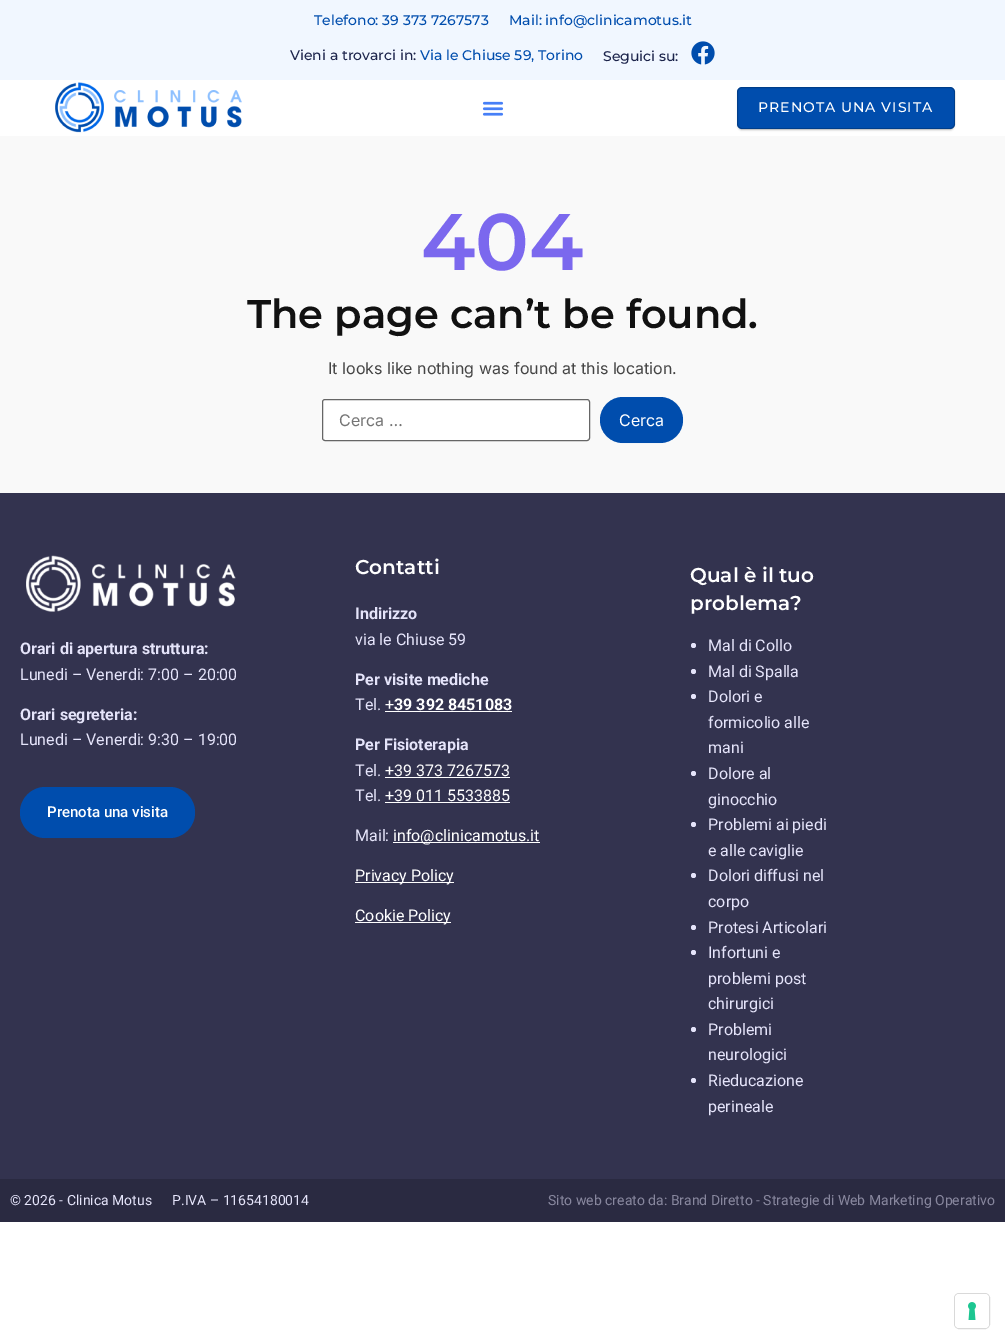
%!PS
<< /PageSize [1005 1344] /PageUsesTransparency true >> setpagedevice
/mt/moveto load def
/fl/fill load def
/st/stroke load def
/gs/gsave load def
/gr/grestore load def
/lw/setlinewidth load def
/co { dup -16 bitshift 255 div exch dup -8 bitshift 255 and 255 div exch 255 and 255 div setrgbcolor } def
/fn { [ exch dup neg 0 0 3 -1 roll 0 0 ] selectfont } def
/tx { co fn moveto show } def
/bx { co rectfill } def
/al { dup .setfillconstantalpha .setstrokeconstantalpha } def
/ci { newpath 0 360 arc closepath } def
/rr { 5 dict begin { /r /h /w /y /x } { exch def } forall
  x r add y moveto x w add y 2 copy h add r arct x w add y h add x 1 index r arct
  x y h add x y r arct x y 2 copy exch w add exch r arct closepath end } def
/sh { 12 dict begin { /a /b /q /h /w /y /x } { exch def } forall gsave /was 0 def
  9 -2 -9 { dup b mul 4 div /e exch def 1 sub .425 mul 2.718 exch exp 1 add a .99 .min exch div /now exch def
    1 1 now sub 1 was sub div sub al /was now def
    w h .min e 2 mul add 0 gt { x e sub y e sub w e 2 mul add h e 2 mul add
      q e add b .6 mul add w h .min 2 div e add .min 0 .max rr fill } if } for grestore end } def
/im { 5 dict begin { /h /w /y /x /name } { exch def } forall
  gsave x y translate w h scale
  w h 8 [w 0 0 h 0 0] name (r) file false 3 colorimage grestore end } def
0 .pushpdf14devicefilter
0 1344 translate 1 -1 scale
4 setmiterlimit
0 0 1005 1344 16#FFFFFF bx
0 0 1005 80 16#F1F7FF bx
(media/1.raw) 691 41 24 24 im
(media/2.raw) 55 82 187 51 im
(media/3.raw) 482 101 22 15 im
16#000000 co
738 90 216 40 4 1 .25 sh
16#004DAD co
737 87 218 42 5 rr fl
0.2 al
16#000000 co
737.5 87.5 217 41 4.5 rr st
1 al
0 136 1005 357 16#F9F9F9 bx
16#FFFFFF co
322.5 399.5 267 41 2.5 rr gs fl gr
16#666666 co
st
16#004DAD co
600 397 83 46 23 rr fl
0.12 al
3 lw
601.5 398.5 80 43 21.5 rr st
1 al
0 493 1005 686 16#33334F bx
(media/4.raw) 26 555 210 57 im
16#004DAD co
20 787 175 51 25.5 rr fl
0.12 al
21.5 788.5 172 48 24 rr st
1 al
385 711 127 1 16#FFFFFF bx
385 777 125 1 16#FFFFFF bx
385 802 125 1 16#FFFFFF bx
393 842 147 1 16#FFFFFF bx
355 882 99 1 16#FFFFFF bx
355 922 96 1 16#FFFFFF bx
16#E5E4FA co
693.5 645.5 2.5 ci fl
693.5 671.5 2.5 ci fl
693.5 696.5 2.5 ci fl
693.5 773.5 2.5 ci fl
693.5 824.5 2.5 ci fl
693.5 875.5 2.5 ci fl
693.5 927.5 2.5 ci fl
693.5 952.5 2.5 ci fl
693.5 1029.5 2.5 ci fl
693.5 1080.5 2.5 ci fl
0 1179 1005 43 16#2A2A41 bx
16#D9D9D9 co
1 lw
954.5 1293.5 35 35 4.5 rr st
16#FFFFFF co
955 1294 34 34 4 rr fl
(media/5.raw) 968 1302 8 18 im
(Telefono: 39 373 7267573) 314 25 /Montserrat-Medium 14 16#004DAD tx
(Mail: info@clinicamotus.it) 509 25 /Montserrat-Medium 14 16#004DAD tx
(Vieni a trovarci in:) 290 60 /Montserrat-Medium 14 16#1C244B tx
(Via le Chiuse 59, Torino) 420 60 /Montserrat-Medium 14 16#004DAD tx
(Seguici su:) 603 61 /Montserrat-Medium 14 16#1C244B tx
16#FFFFFF co
758 112 mt 1 0 (PRENOTA UNA VISITA) ashow
(404) 421 270 /Montserrat-SemiBold 80 16#7B68EE tx
(The page can’t be found.) 247 328 /Montserrat-SemiBold 40 16#111111 tx
(It looks like nothing was found at this location.) 328 374 /Inter-Regular 16 16#444444 tx
(Cerca …) 339 426 /Inter-Regular 16 16#757575 tx
(Cerca) 619 426 /Inter-Regular 16 16#FFFFFF tx
(Orari di apertura struttura:) 20 654 /Roboto-Bold 16 16#E5E4FA tx
(Lunedi – Venerdi: 7:00 – 20:00) 20 680 /Roboto-Regular 16 16#E5E4FA tx
(Orari segreteria:) 20 720 /Roboto-Bold 16 16#E5E4FA tx
(Lunedi – Venerdi: 9:30 – 19:00) 20 745 /Roboto-Regular 16 16#E5E4FA tx
(Prenota una visita) 47 817 /Roboto-Medium 15 16#FFFFFF tx
(Contatti) 355 574 /Montserrat-SemiBold 20 16#FFFFFF tx
(Indirizzo) 355 619 /Roboto-Bold 16 16#E5E4FA tx
(via le Chiuse 59) 355 645 /Roboto-Regular 16 16#E5E4FA tx
(Per visite mediche) 355 685 /Roboto-Bold 16 16#E5E4FA tx
(Tel.) 355 710 /Roboto-Regular 16 16#E5E4FA tx
(+) 385 710 /Roboto-Regular 16 16#FFFFFF tx
(39 392 8451083) 394 710 /Roboto-Bold 16 16#FFFFFF tx
(Per Fisioterapia) 355 750 /Roboto-Bold 16 16#E5E4FA tx
(Tel.) 355 776 /Roboto-Regular 16 16#E5E4FA tx
(+39 373 7267573) 385 776 /Roboto-Regular 16 16#FFFFFF tx
(Tel.) 355 801 /Roboto-Regular 16 16#E5E4FA tx
(+39 011 5533885) 385 801 /Roboto-Regular 16 16#FFFFFF tx
(Mail:) 355 841 /Roboto-Regular 16 16#E5E4FA tx
(info@clinicamotus.it) 393 841 /Roboto-Regular 16 16#FFFFFF tx
(Privacy Policy) 355 881 /Roboto-Regular 16 16#FFFFFF tx
(Cookie Policy) 355 921 /Roboto-Regular 16 16#FFFFFF tx
(Qual è il tuo) 690 582 /Montserrat-SemiBold 20 16#FFFFFF tx
(problema?) 690 610 /Montserrat-SemiBold 20 16#FFFFFF tx
(Mal di Collo) 708 651 /Roboto-Regular 16 16#E5E4FA tx
(Mal di Spalla) 708 677 /Roboto-Regular 16 16#E5E4FA tx
(Dolori e) 708 702 /Roboto-Regular 16 16#E5E4FA tx
(formicolio alle) 708 728 /Roboto-Regular 16 16#E5E4FA tx
(mani) 708 753 /Roboto-Regular 16 16#E5E4FA tx
(Dolore al) 708 779 /Roboto-Regular 16 16#E5E4FA tx
(ginocchio) 708 805 /Roboto-Regular 16 16#E5E4FA tx
(Problemi ai piedi) 708 830 /Roboto-Regular 16 16#E5E4FA tx
(e alle caviglie) 708 856 /Roboto-Regular 16 16#E5E4FA tx
(Dolori diffusi nel) 708 881 /Roboto-Regular 16 16#E5E4FA tx
(corpo) 708 907 /Roboto-Regular 16 16#E5E4FA tx
(Protesi Articolari) 708 933 /Roboto-Regular 16 16#E5E4FA tx
(Infortuni e) 708 958 /Roboto-Regular 16 16#E5E4FA tx
(problemi post) 708 984 /Roboto-Regular 16 16#E5E4FA tx
(chirurgici) 708 1009 /Roboto-Regular 16 16#E5E4FA tx
(Problemi) 708 1035 /Roboto-Regular 16 16#E5E4FA tx
(neurologici) 708 1060 /Roboto-Regular 16 16#E5E4FA tx
(Rieducazione) 708 1086 /Roboto-Regular 16 16#E5E4FA tx
(perineale) 708 1112 /Roboto-Regular 16 16#E5E4FA tx
(© 2026 - Clinica Motus) 10 1205 /Roboto-Regular 14 16#E5E4FA tx
(P.IVA – 11654180014) 172 1205 /Roboto-Regular 14 16#E5E4FA tx
(Sito web creato da: Brand Diretto - Strategie di Web Marketing Operativo) 548 1205 /Roboto-Regular 14 16#88879E tx
.poppdf14devicefilter showpage
